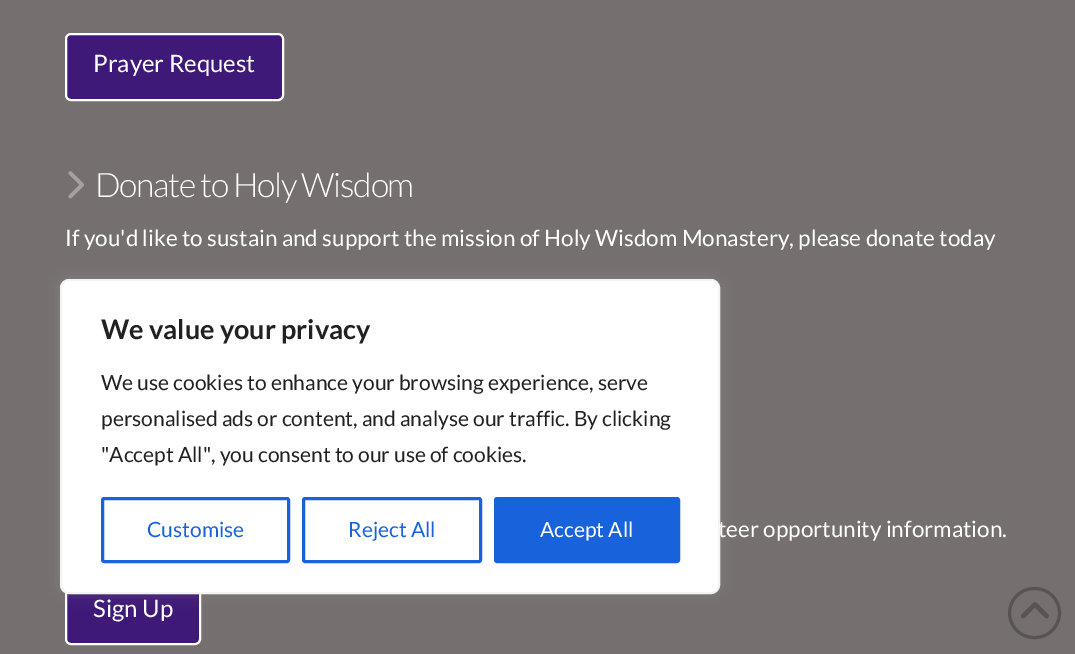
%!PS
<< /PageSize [1075 654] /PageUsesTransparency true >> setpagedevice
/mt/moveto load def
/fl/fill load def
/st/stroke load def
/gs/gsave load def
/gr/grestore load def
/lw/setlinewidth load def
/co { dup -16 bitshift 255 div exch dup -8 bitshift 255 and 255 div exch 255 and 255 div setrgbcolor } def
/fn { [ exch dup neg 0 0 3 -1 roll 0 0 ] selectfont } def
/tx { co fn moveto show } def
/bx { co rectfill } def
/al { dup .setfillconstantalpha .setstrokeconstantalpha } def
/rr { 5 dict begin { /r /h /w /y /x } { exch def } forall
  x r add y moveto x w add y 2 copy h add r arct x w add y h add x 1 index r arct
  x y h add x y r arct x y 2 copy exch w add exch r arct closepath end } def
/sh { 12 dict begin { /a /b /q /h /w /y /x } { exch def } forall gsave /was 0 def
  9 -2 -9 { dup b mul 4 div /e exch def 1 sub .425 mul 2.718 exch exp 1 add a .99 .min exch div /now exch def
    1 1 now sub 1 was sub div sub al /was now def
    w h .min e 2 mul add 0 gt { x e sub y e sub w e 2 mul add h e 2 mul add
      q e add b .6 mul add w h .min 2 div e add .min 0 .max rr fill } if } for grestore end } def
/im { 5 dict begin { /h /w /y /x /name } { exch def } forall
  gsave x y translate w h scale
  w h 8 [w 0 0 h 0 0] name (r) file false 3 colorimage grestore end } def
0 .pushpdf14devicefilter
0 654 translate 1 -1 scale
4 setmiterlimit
0 0 1075 654 16#756F6F bx
16#3F1977 co
66 34 217 66 5 rr gs fl gr
16#FFFFFF co
2 lw
st
(media/1.raw) 68 171 16 28 im
16#3F1977 co
66 579 134 65 5 rr gs fl gr
16#FFFFFF co
st
16#585454 co
3 lw
1009.5 588.5 50 49 24.5 rr st
(media/2.raw) 1021 602 28 17 im
16#ACABAB co
60 278 660 315 9 7.5 .3 sh
16#FFFFFF co
61 280 658 313 8 rr gs fl gr
16#F4F4F4 co
2 lw
st
16#1863DC co
3 lw
102.5 498.5 186 63 1.5 rr st
303.5 498.5 177 63 1.5 rr st
495.5 498.5 183 63 1.5 rr gs fl gr
st
(Prayer Request) 93 72 /Lato-Regular 24 16#FFFFFF tx
/Lato-Light 33.75 fn
95 197 mt -1.3 0 (Donate to Holy Wisdom) ashow
(If you'd like to sustain and support the mission of Holy Wisdom Monastery, please donate today) 65 246 /Lato-Regular 22.5 16#FFFFFF tx
(teer opportunity information.) 718 537 /Lato-Regular 22.5 16#FFFFFF tx
(Sign Up) 93 617 /Lato-Regular 24 16#FFFFFF tx
(We value your privacy) 101 339 /Lato-Bold 27 16#212121 tx
(We use cookies to enhance your browsing experience, serve) 101 390 /Lato-Regular 21 16#212121 tx
(personalised ads or content, and analyse our traffic. By clicking) 101 426 /Lato-Regular 21 16#212121 tx
("Accept All", you consent to our use of cookies.) 101 462 /Lato-Regular 21 16#212121 tx
(Customise) 147 537 /Lato-Regular 21 16#1863DC tx
(Reject All) 348 537 /Lato-Regular 21 16#1863DC tx
(Accept All) 540 537 /Lato-Regular 21 16#FFFFFF tx
.poppdf14devicefilter showpage
